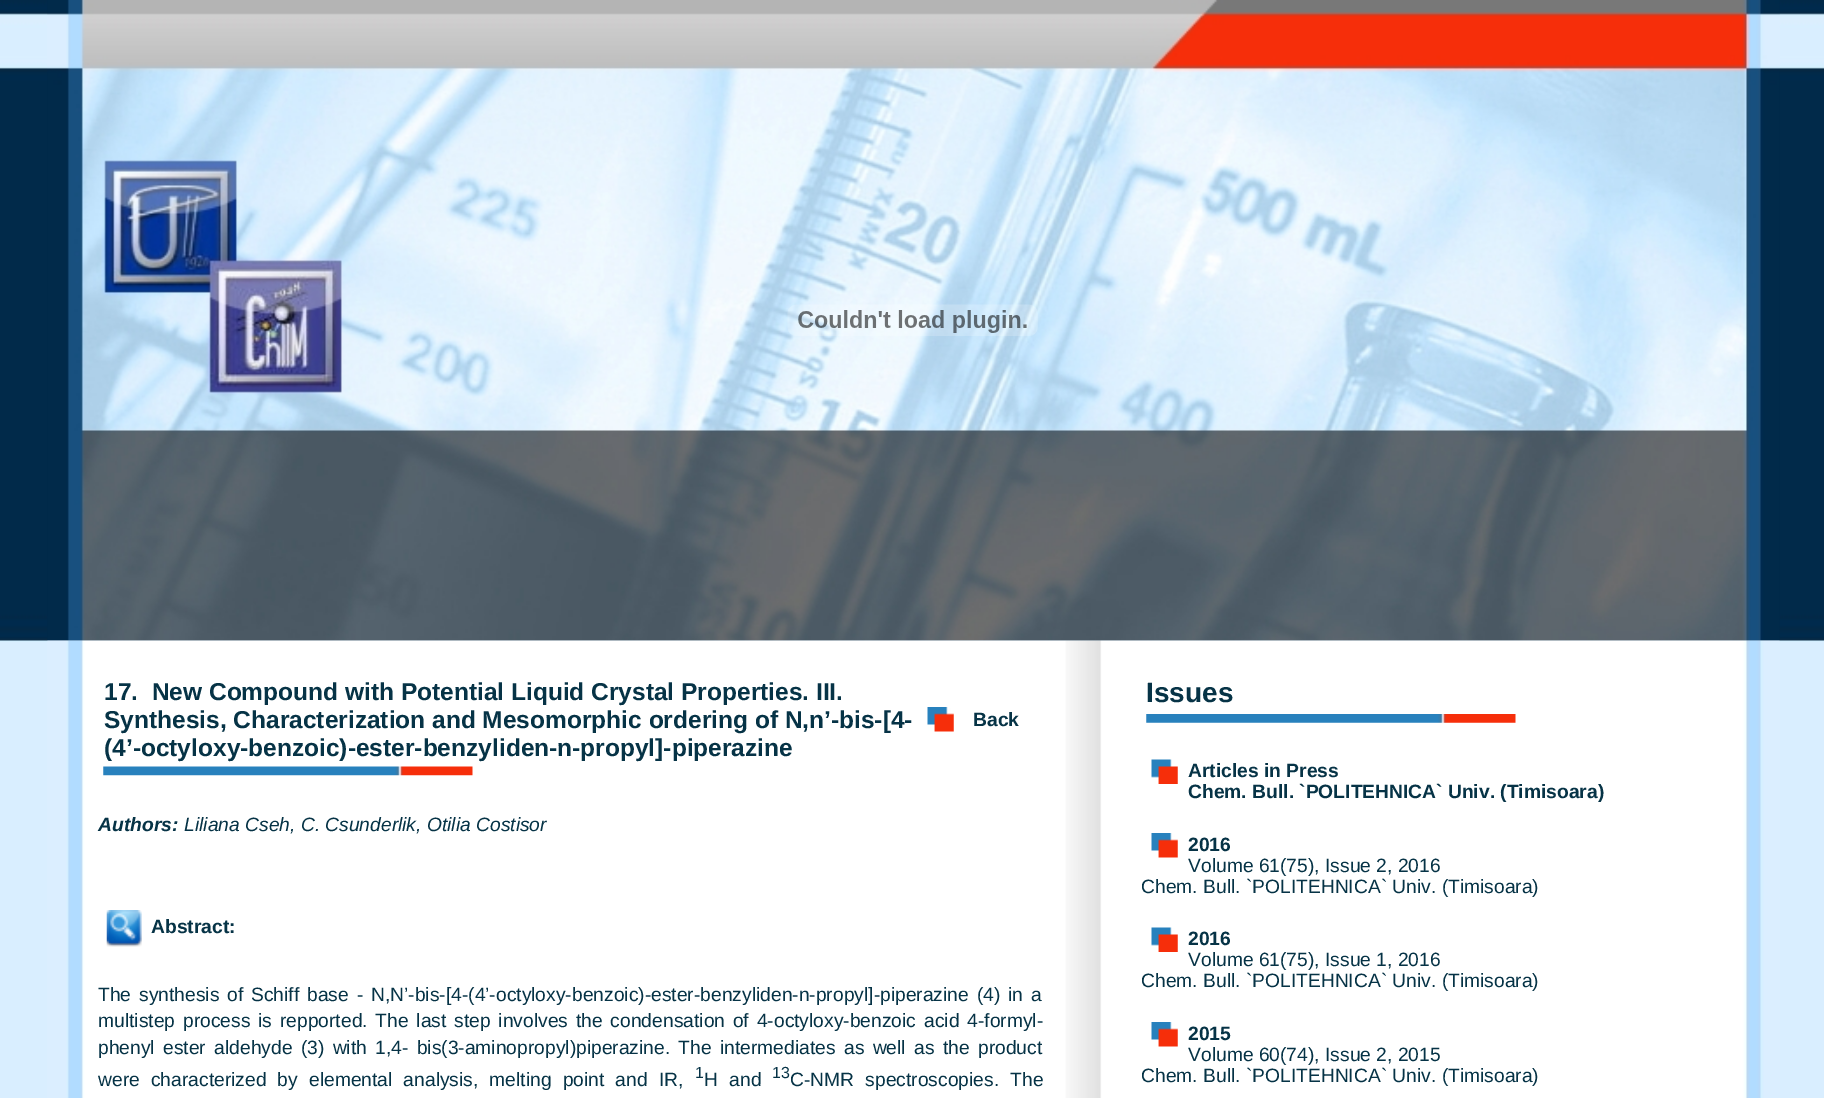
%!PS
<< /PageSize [1824 1098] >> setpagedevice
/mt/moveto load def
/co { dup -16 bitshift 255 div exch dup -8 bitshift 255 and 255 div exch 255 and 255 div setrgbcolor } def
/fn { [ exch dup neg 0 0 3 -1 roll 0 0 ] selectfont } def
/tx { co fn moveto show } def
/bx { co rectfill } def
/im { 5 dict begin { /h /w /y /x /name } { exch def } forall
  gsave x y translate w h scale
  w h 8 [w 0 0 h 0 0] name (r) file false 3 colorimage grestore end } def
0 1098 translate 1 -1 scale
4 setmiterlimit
0 0 1824 1098 16#D9EEFF bx
(media/1.raw) 0 0 1824 642 im
(media/2.raw) 47 0 1733 641 im
(media/3.raw) 787 304 251 32 im
(media/4.raw) 47 640 1733 458 im
(media/5.raw) 927 707 27 25 im
(media/6.raw) 103 766 370 10 im
(media/7.raw) 106 910 36 37 im
(media/8.raw) 1146 714 370 9 im
(media/9.raw) 1151 759 27 25 im
(media/5.raw) 1151 833 27 25 im
(media/9.raw) 1151 927 27 25 im
(media/5.raw) 1151 1022 27 25 im
(17.  New Compound with Potential Liquid Crystal Properties. III.) 104 700 /LiberationSans-Bold 24.5 16#063346 tx
(Synthesis, Characterization and Mesomorphic ordering of N,n’-bis-[4-) 104 728 /LiberationSans-Bold 24.5 16#063346 tx
(\(4’-octyloxy-benzoic\)-ester-benzyliden-n-propyl]-piperazine) 104 756 /LiberationSans-Bold 24.5 16#063346 tx
(Back) 973 726 /LiberationSans-Bold 19.25 16#063346 tx
(Authors:) 98 831 /LiberationSans-BoldItalic 19.25 16#063346 tx
(Liliana Cseh, C. Csunderlik, Otilia Costisor) 184 831 /LiberationSans-Italic 19.25 16#063346 tx
(Abstract:) 151 933 /LiberationSans-Bold 19.25 16#063346 tx
/LiberationSans-Regular 19.25 fn
98 1001 mt 2.5 0 32 (The synthesis of Schiff base - N,N’-bis-[4-\(4’-octyloxy-benzoic\)-ester-benzyliden-n-propyl]-piperazine \(4\) in a) widthshow
98 1027 mt 2.5 0 32 (multistep process is repported. The last step involves the condensation of 4-octyloxy-benzoic acid 4-formyl-) widthshow
98 1054 mt 3 0 32 (phenyl ester aldehyde \(3\) with 1,4- bis\(3-aminopropyl\)piperazine. The intermediates as well as the product) widthshow
98 1086 mt 5.75 0 32 (were characterized by elemental analysis, melting point and IR,) widthshow
(1) 695 1078 /LiberationSans-Regular 16 16#063346 tx
/LiberationSans-Regular 19.25 fn
704 1086 mt 6 0 32 (H and) widthshow
(13) 772 1078 /LiberationSans-Regular 16 16#063346 tx
/LiberationSans-Regular 19.25 fn
790 1086 mt 5.75 0 32 (C-NMR spectroscopies. The) widthshow
(Issues) 1146 702 /LiberationSans-Bold 28 16#063346 tx
(Articles in Press) 1188 777 /LiberationSans-Bold 19.25 16#063346 tx
(Chem. Bull. `POLITEHNICA` Univ. \(Timisoara\)) 1188 798 /LiberationSans-Bold 19.25 16#063346 tx
(2016) 1188 851 /LiberationSans-Bold 19.25 16#063346 tx
(Volume 61\(75\), Issue 2, 2016) 1188 872 /LiberationSans-Regular 19.25 16#063346 tx
(Chem. Bull. `POLITEHNICA` Univ. \(Timisoara\)) 1141 893 /LiberationSans-Regular 19.25 16#063346 tx
(2016) 1188 945 /LiberationSans-Bold 19.25 16#063346 tx
(Volume 61\(75\), Issue 1, 2016) 1188 966 /LiberationSans-Regular 19.25 16#063346 tx
(Chem. Bull. `POLITEHNICA` Univ. \(Timisoara\)) 1141 987 /LiberationSans-Regular 19.25 16#063346 tx
(2015) 1188 1040 /LiberationSans-Bold 19.25 16#063346 tx
(Volume 60\(74\), Issue 2, 2015) 1188 1061 /LiberationSans-Regular 19.25 16#063346 tx
(Chem. Bull. `POLITEHNICA` Univ. \(Timisoara\)) 1141 1082 /LiberationSans-Regular 19.25 16#063346 tx
showpage
